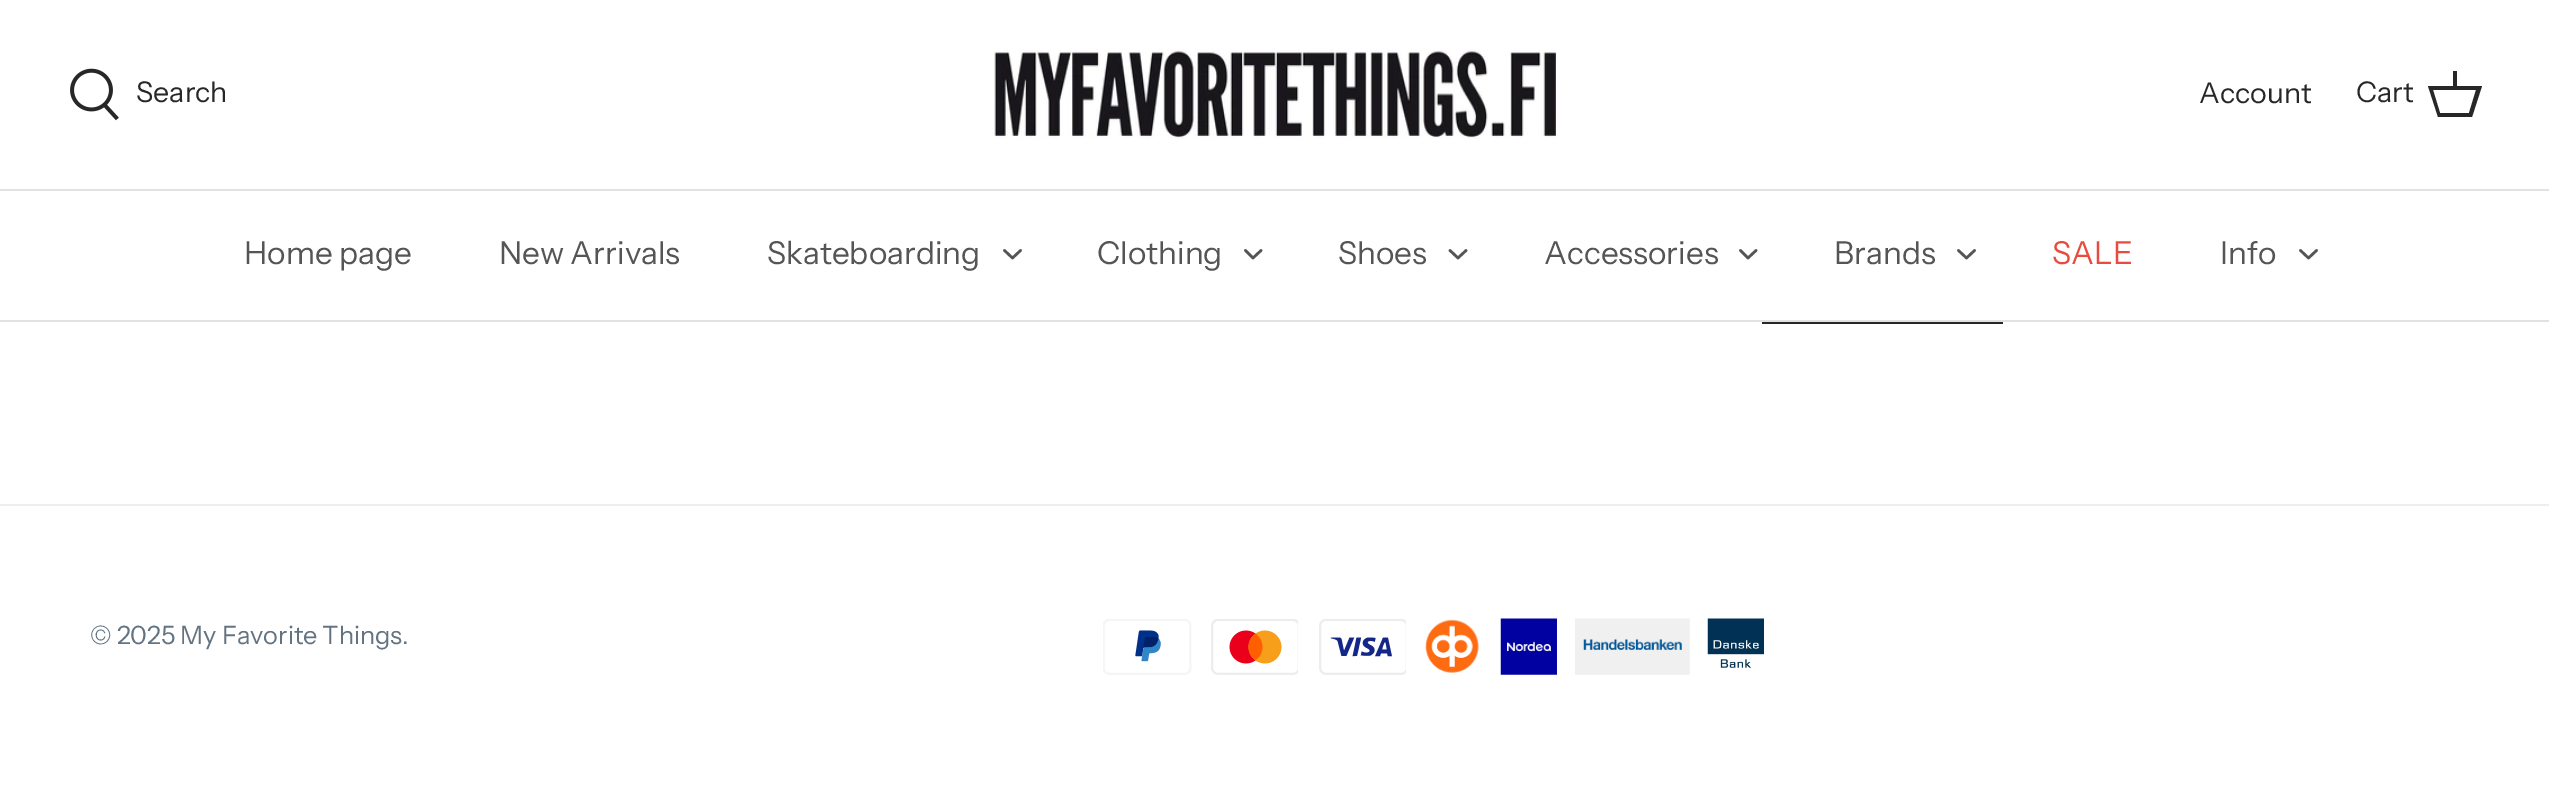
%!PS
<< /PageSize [2549 787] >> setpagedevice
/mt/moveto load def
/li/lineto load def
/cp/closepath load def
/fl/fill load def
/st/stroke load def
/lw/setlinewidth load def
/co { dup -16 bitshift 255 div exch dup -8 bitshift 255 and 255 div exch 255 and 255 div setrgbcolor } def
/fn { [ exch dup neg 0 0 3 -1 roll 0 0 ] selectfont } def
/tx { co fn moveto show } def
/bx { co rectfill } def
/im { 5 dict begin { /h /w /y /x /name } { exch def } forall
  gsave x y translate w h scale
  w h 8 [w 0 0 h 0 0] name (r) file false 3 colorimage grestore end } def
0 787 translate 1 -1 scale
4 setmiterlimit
0 0 2549 787 16#FFFFFF bx
0 189 2549 2 16#E2E2E2 bx
(media/1.raw) 70 68 49 53 im
(media/2.raw) 994 49 564 90 im
16#272727 co
2453 86 mt 2453 71 li 2457 71 li 2457 86 li 2482 86 li 2472 117 li 2438 117 li 2428 86 li cp 2433 90 mt 2440 113 li 2469 113 li 2476 90 li cp fl
0 320 2549 2 16#E2E2E2 bx
16#555555 co
2.6 lw
1 setlinecap
1 setlinejoin
1004.5 250.5 mt 1012.5 258 li 1020.5 250.5 li st
1245.5 250.5 mt 1253 258 li 1261 250.5 li st
1450 250.5 mt 1458 258 li 1466 250.5 li st
1740.5 250.5 mt 1748 258 li 1756 250.5 li st
1958.5 250.5 mt 1966.5 258 li 1974.5 250.5 li st
2300.5 250.5 mt 2308.5 258 li 2316.5 250.5 li st
1762 322 241 2 16#272727 bx
0 504 2549 2 16#EEEEEE bx
(media/3.raw) 1103 619 89 56 im
(media/4.raw) 1211 619 87 56 im
(media/5.raw) 1319 619 87 56 im
(media/6.raw) 1425 619 54 54 im
(media/7.raw) 1500 618 57 57 im
(media/8.raw) 1575 618 115 57 im
(media/9.raw) 1707 618 57 50 im
(Search) 136 102 /InstrumentSans-Regular 28.5 16#272727 tx
(Account) 2199 103 /InstrumentSans-Regular 28.5 16#272727 tx
(Cart) 2356 102 /InstrumentSans-Regular 28.5 16#272727 tx
(Home page) 244 264 /InstrumentSans-Regular 31.5 16#555555 tx
(New Arrivals) 499 264 /InstrumentSans-Regular 31.5 16#555555 tx
(Skateboarding) 767 264 /InstrumentSans-Regular 31.5 16#555555 tx
(Clothing) 1097 264 /InstrumentSans-Regular 31.5 16#555555 tx
(Shoes) 1338 264 /InstrumentSans-Regular 31.5 16#555555 tx
(Accessories) 1544 264 /InstrumentSans-Regular 31.5 16#555555 tx
(Brands) 1834 264 /InstrumentSans-Regular 31.5 16#555555 tx
(SALE) 2052 264 /InstrumentSans-Regular 31.5 16#E94B3F tx
(Info) 2220 264 /InstrumentSans-Regular 31.5 16#555555 tx
(© 2025 My Favorite Things.) 90 644 /InstrumentSans-Regular 25.25 16#637381 tx
showpage
